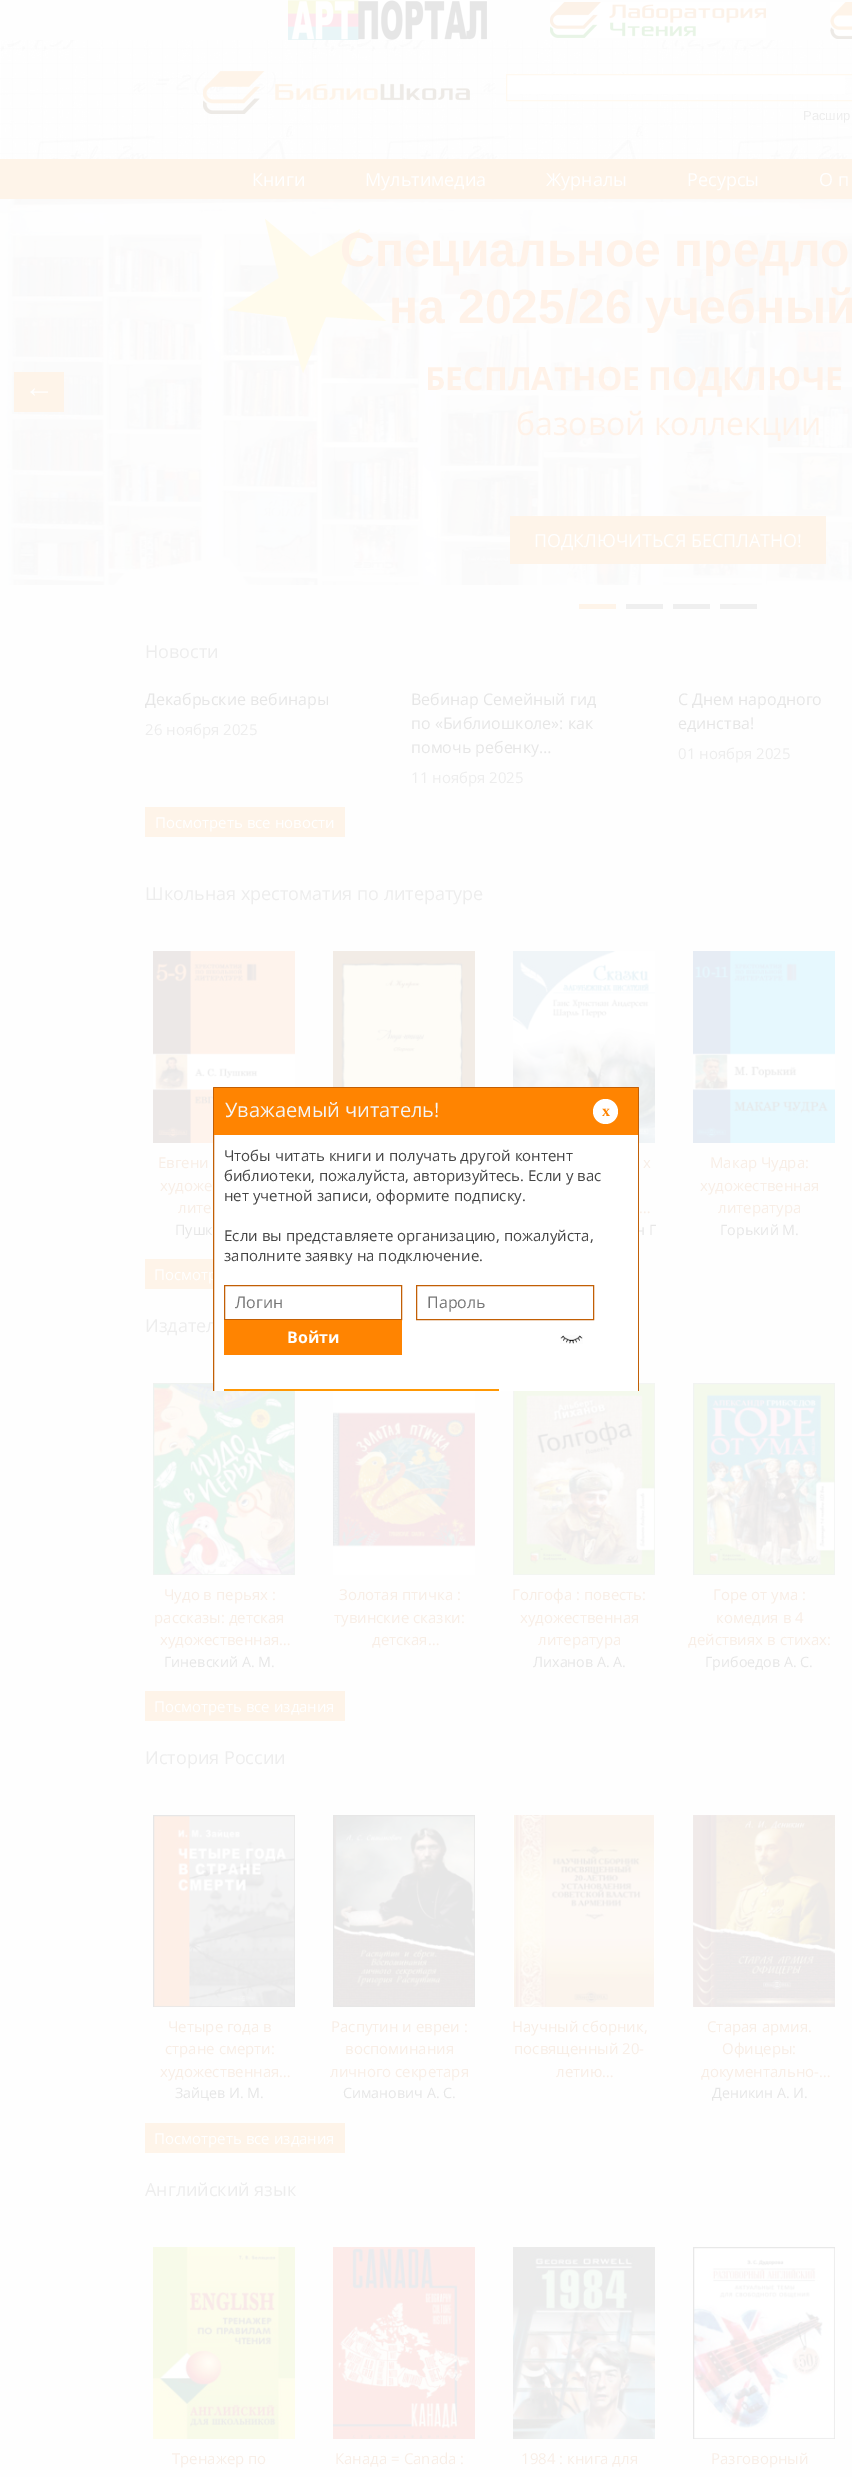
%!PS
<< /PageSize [852 2477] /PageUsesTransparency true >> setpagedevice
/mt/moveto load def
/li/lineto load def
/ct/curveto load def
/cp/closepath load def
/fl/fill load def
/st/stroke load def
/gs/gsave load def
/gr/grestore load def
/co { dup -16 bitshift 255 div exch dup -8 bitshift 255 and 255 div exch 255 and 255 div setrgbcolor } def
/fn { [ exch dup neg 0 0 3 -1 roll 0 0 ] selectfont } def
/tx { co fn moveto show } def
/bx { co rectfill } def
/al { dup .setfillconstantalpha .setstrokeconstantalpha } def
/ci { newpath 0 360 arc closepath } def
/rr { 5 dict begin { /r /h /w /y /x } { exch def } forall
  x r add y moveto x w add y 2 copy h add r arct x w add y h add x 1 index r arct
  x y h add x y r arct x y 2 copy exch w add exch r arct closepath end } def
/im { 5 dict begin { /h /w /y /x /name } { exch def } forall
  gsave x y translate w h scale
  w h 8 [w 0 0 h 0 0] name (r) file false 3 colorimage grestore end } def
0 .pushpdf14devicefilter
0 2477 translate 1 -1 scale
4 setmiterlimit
0 0 852 2477 16#FEFEFE bx
(media/1.raw) 288 0 199 40 im
(media/2.raw) 550 2 216 36 im
(media/3.raw) 830 2 22 37 im
(media/4.raw) 0 40 852 119 im
(media/5.raw) 203 71 267 43 im
507 75 338 19 16#FFFFFF bx
16#FFF9F0 co
506.5 74.5 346 26 rectstroke
0 159 852 40 16#FEF4E9 bx
(media/6.raw) 0 199 852 386 im
14 372 50 40 16#FEF4E9 bx
0.95 al
16#FFFBEB co
360 229 mt 341 283 li 386 321 li 326 317 li 303 373 li 286 317 li 228 310 li 279 278 li 265 219 li 311 257 li cp fl
1 al
510 516 316 48 16#FEF4E9 bx
579 604 37 5 16#FEF4E9 bx
626 604 37 5 16#EFEFEF bx
673 604 37 5 16#EFEFEF bx
720 604 37 5 16#EFEFEF bx
145 807 200 30 16#FEF4E9 bx
(media/7.raw) 333 951 142 136 im
(media/8.raw) 153 951 142 192 im
(media/9.raw) 513 951 142 192 im
(media/10.raw) 693 951 142 192 im
145 1259 68 30 16#FEF4E9 bx
(media/11.raw) 153 1383 142 192 im
(media/12.raw) 333 1391 142 184 im
(media/13.raw) 513 1383 142 192 im
(media/14.raw) 693 1383 142 192 im
145 1691 200 30 16#FEF4E9 bx
(media/15.raw) 153 1815 142 192 im
(media/16.raw) 333 1815 142 192 im
(media/17.raw) 513 1815 142 192 im
(media/18.raw) 693 1815 142 192 im
145 2123 200 30 16#FEF4E9 bx
(media/19.raw) 153 2247 142 192 im
(media/20.raw) 333 2247 142 192 im
(media/21.raw) 513 2247 142 192 im
(media/22.raw) 693 2247 142 192 im
(Расшир) 803 120 /LiberationSans-Regular 13 16#EDEDED tx
(Книги) 252 186 /OpenSans-Regular 18 16#FFFFFF tx
(Мультимедиа) 365 186 /OpenSans-Regular 18 16#FFFFFF tx
(Журналы) 546 186 /OpenSans-Regular 18 16#FFFFFF tx
(Ресурсы) 687 186 /OpenSans-Regular 18 16#FFFFFF tx
(О п) 819 186 /OpenSans-Regular 18 16#FFFFFF tx
(←) 24 397 /LiberationSans-Regular 30 16#FFFFFF tx
(Специальное предло) 340 266 /LiberationSans-Bold 48 16#FFF2E8 tx
(на 2025/26 учебный) 389 323 /LiberationSans-Bold 48 16#FFF2E8 tx
(БЕСПЛАТНОЕ ПОДКЛЮЧЕ) 425 390 /OpenSans-Bold 32 16#FFF2E8 tx
(базовой коллекции) 516 435 /OpenSans-Regular 32 16#FFF2E8 tx
(ПОДКЛЮЧИТЬСЯ БЕСПЛАТНО!) 534 547 /OpenSans-Regular 18 16#FFFFFF tx
(Новости) 145 658 /OpenSans-Regular 18 16#EDEDED tx
gs
145 687 200 24 rectclip
(Декабрьские вебинары) 145 705 /OpenSans-Regular 16 16#E6E6E6 tx
gr
(26 ноября 2025) 145 735 /OpenSans-Regular 15 16#EDEDED tx
(Вебинар Семейный гид) 411 705 /OpenSans-Regular 16 16#E6E6E6 tx
(по «Библиошколе»: как) 411 729 /OpenSans-Regular 16 16#E6E6E6 tx
(помочь ребенку…) 411 753 /OpenSans-Regular 16 16#E6E6E6 tx
(11 ноября 2025) 411 783 /OpenSans-Regular 15 16#EDEDED tx
(С Днем народного) 678 705 /OpenSans-Regular 16 16#E6E6E6 tx
(единства!) 678 729 /OpenSans-Regular 16 16#E6E6E6 tx
(01 ноября 2025) 678 759 /OpenSans-Regular 15 16#EDEDED tx
(Посмотреть все новости) 155 828 /OpenSans-Regular 15 16#FFFFFF tx
(Школьная хрестоматия по литературе) 145 900 /OpenSans-Regular 18 16#EDEDED tx
(Евгени) 158 1168 /OpenSans-Regular 15 16#F8EEE6 tx
(художе) 160 1191 /OpenSans-Regular 15 16#F8EEE6 tx
(лите) 178 1213 /OpenSans-Regular 15 16#F8EEE6 tx
(Пушк) 175 1235 /OpenSans-Regular 14.25 16#E6E6E6 tx
(х) 643 1168 /OpenSans-Regular 15 16#F8EEE6 tx
(…) 639 1213 /OpenSans-Regular 15 16#F8EEE6 tx
(н Г) 636 1235 /OpenSans-Regular 14.25 16#E6E6E6 tx
(Макар Чудра:) 710 1168 /OpenSans-Regular 15 16#F8EEE6 tx
(художественная) 700 1191 /OpenSans-Regular 15 16#F8EEE6 tx
(литература) 718 1213 /OpenSans-Regular 15 16#F8EEE6 tx
(Горький М.) 720 1235 /OpenSans-Regular 14.25 16#E6E6E6 tx
(Посмотр) 154 1280 /OpenSans-Regular 15 16#FFFFFF tx
(Издател) 145 1332 /OpenSans-Regular 18 16#EDEDED tx
(Чудо в перьях :) 164 1600 /OpenSans-Regular 15 16#F8EEE6 tx
(рассказы: детская) 154 1623 /OpenSans-Regular 15 16#F8EEE6 tx
(художественная…) 160 1645 /OpenSans-Regular 15 16#F8EEE6 tx
(Гиневский А. М.) 164 1667 /OpenSans-Regular 14.25 16#E6E6E6 tx
(Золотая птичка :) 339 1600 /OpenSans-Regular 15 16#F8EEE6 tx
(тувинские сказки:) 334 1623 /OpenSans-Regular 15 16#F8EEE6 tx
(детская…) 372 1645 /OpenSans-Regular 15 16#F8EEE6 tx
(Голгофа : повесть:) 512 1600 /OpenSans-Regular 15 16#F8EEE6 tx
(художественная) 520 1623 /OpenSans-Regular 15 16#F8EEE6 tx
(литература) 538 1645 /OpenSans-Regular 15 16#F8EEE6 tx
(Лиханов А. А.) 533 1667 /OpenSans-Regular 14.25 16#E6E6E6 tx
(Горе от ума :) 713 1600 /OpenSans-Regular 15 16#F8EEE6 tx
(комедия в 4) 716 1623 /OpenSans-Regular 15 16#F8EEE6 tx
(действиях в стихах:) 688 1645 /OpenSans-Regular 15 16#F8EEE6 tx
(Грибоедов А. С.) 705 1667 /OpenSans-Regular 14.25 16#E6E6E6 tx
(Посмотреть все издания) 154 1712 /OpenSans-Regular 15 16#FFFFFF tx
(История России) 145 1764 /OpenSans-Regular 18 16#EDEDED tx
(Четыре года в) 168 2032 /OpenSans-Regular 15 16#F8EEE6 tx
(стране смерти:) 165 2054 /OpenSans-Regular 15 16#F8EEE6 tx
(художественная…) 160 2077 /OpenSans-Regular 15 16#F8EEE6 tx
(Зайцев И. М.) 175 2098 /OpenSans-Regular 14.25 16#E6E6E6 tx
(Распутин и евреи :) 331 2032 /OpenSans-Regular 15 16#F8EEE6 tx
(воспоминания) 345 2054 /OpenSans-Regular 15 16#F8EEE6 tx
(личного секретаря) 330 2077 /OpenSans-Regular 15 16#F8EEE6 tx
(Симанович А. С.) 343 2098 /OpenSans-Regular 14.25 16#E6E6E6 tx
(Научный сборник,) 512 2032 /OpenSans-Regular 15 16#F8EEE6 tx
(посвященный 20-) 514 2054 /OpenSans-Regular 15 16#F8EEE6 tx
(летию…) 556 2077 /OpenSans-Regular 15 16#F8EEE6 tx
(Старая армия.) 707 2032 /OpenSans-Regular 15 16#F8EEE6 tx
(Офицеры:) 722 2054 /OpenSans-Regular 15 16#F8EEE6 tx
(документально-…) 701 2077 /OpenSans-Regular 15 16#F8EEE6 tx
(Деникин А. И.) 712 2098 /OpenSans-Regular 14.25 16#E6E6E6 tx
(Посмотреть все издания) 154 2144 /OpenSans-Regular 15 16#FFFFFF tx
(Английский язык) 145 2196 /OpenSans-Regular 18 16#EDEDED tx
(Тренажер по) 172 2464 /OpenSans-Regular 15 16#F8EEE6 tx
(Канада = Canada :) 335 2464 /OpenSans-Regular 15 16#F8EEE6 tx
(1984 : книга для) 521 2464 /OpenSans-Regular 15 16#F8EEE6 tx
(Разговорный) 711 2464 /OpenSans-Regular 15 16#F8EEE6 tx
16#FFFFFF co
214 1087 mt 638 1087 li 638.5 1087 639 1087.5 639 1088 ct 639 1391 li 213 1391 li 213 1088 li 213 1087.5 213.5 1087 214 1087 ct cp fl
gs
213 1087 426 304 rectclip
16#C25F05 co
213.5 1087.5 425 397 .5 rr st
gr
214 1088 424 47 16#FF8401 bx
(Уважаемый читатель!) 225 1117 /OpenSans-Regular 20 16#F5F5F5 tx
16#FFFFFF co
605.5 1111.5 12.5 ci fl
(x) 602 1116 /LiberationSerif-Bold 16 16#FF8401 tx
(Чтобы читать книги и получать другой контент) 224 1161 /OpenSans-Regular 15 16#454545 tx
(библиотеки, пожалуйста, авторизуйтесь. Если у вас) 224 1181 /OpenSans-Regular 15 16#454545 tx
(нет учетной записи, оформите подписку.) 224 1201 /OpenSans-Regular 15 16#454545 tx
(Если вы представляете организацию, пожалуйста,) 224 1241 /OpenSans-Regular 15 16#454545 tx
(заполните заявку на подключение.) 224 1261 /OpenSans-Regular 15 16#454545 tx
16#C25F05 co
224.5 1285.5 177 34 rectstroke
(Логин) 235 1308 /OpenSans-Regular 16 16#757575 tx
16#C25F05 co
416.5 1285.5 177 34 rectstroke
(Пароль) 427 1308 /OpenSans-Regular 16 16#757575 tx
224 1320 178 35 16#FF8401 bx
(Войти) 287 1343 /OpenSans-Bold 16 16#FFFFFF tx
(media/23.raw) 560 1335 23 9 im
224 1389 275 2 16#FF9804 bx
.poppdf14devicefilter showpage
